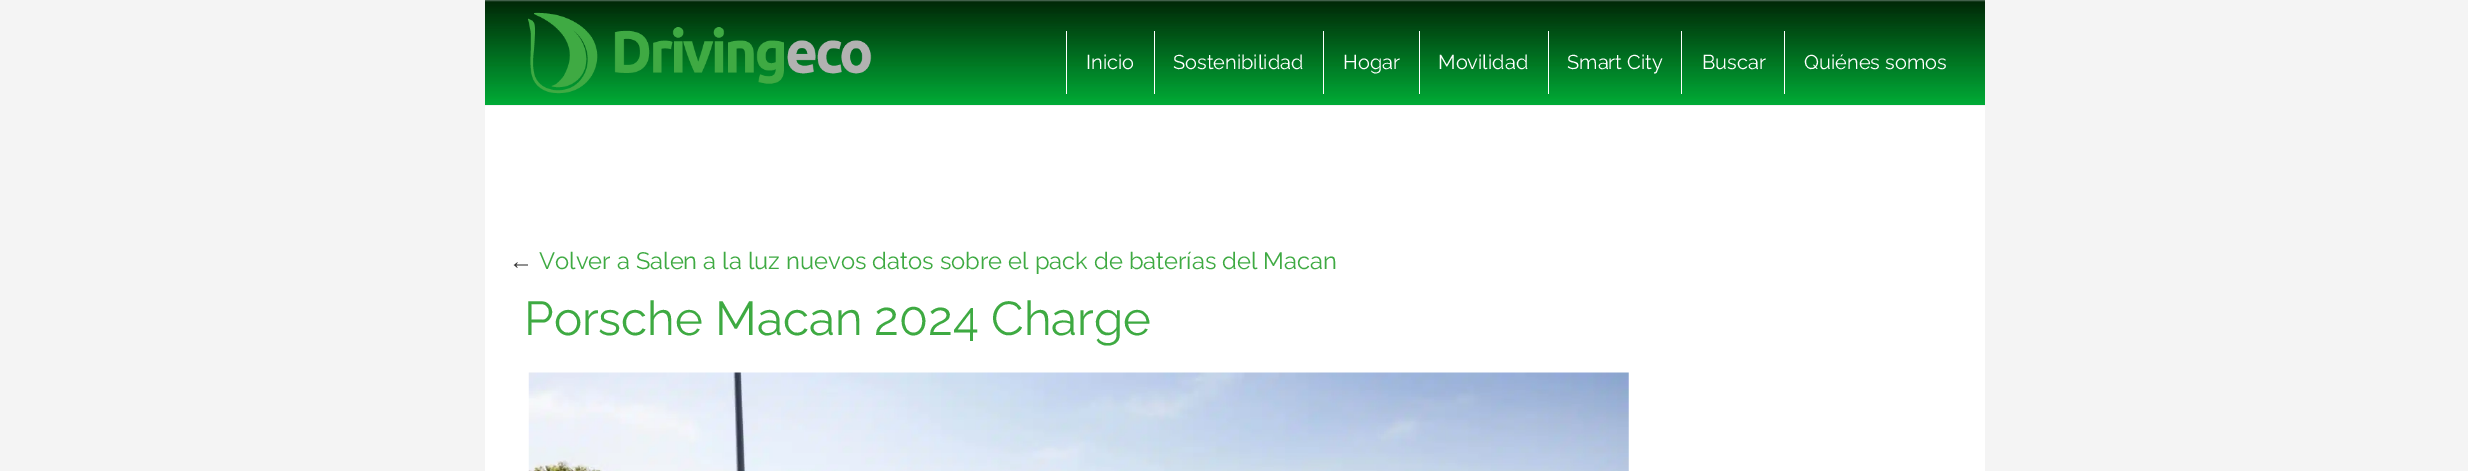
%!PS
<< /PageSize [2468 471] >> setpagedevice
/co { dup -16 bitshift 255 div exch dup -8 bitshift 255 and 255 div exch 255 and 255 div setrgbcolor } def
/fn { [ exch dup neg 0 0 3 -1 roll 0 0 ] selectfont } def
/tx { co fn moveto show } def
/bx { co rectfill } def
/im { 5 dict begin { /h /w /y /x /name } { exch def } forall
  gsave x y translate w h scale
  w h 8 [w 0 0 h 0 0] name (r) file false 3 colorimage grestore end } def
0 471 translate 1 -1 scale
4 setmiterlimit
0 0 2468 471 16#F4F4F4 bx
(media/1.raw) 485 0 1500 105 im
(media/2.raw) 528 12 344 82 im
1066 31 1 63 16#FFFFFF bx
1154 31 1 63 16#FFFFFF bx
1323 31 1 63 16#FFFFFF bx
1419 31 1 63 16#FFFFFF bx
1548 31 1 63 16#FFFFFF bx
1681 31 1 63 16#FFFFFF bx
1784 31 1 63 16#FFFFFF bx
485 106 1500 365 16#FFFFFF bx
(media/3.raw) 528 372 1101 99 im
(Inicio) 1086 69 /Raleway-Regular 20 16#FFFFFF tx
(Sostenibilidad) 1173 69 /Raleway-Regular 20 16#FFFFFF tx
(Hogar) 1343 69 /Raleway-Regular 20 16#FFFFFF tx
(Movilidad) 1438 69 /Raleway-Regular 20 16#FFFFFF tx
(Smart City) 1567 69 /Raleway-Regular 20 16#FFFFFF tx
(Buscar) 1702 69 /Raleway-Regular 20 16#FFFFFF tx
(Quiénes somos) 1804 69 /Raleway-Regular 20 16#FFFFFF tx
(←) 509 269 /LiberationSans-Regular 23.75 16#333333 tx
(Volver a Salen a la luz nuevos datos sobre el pack de baterías del Macan) 539 269 /Raleway-Regular 23.75 16#3EAA42 tx
(Porsche Macan 2024 Charge) 524 335 /Raleway-Regular 47.5 16#3EAA42 tx
showpage
